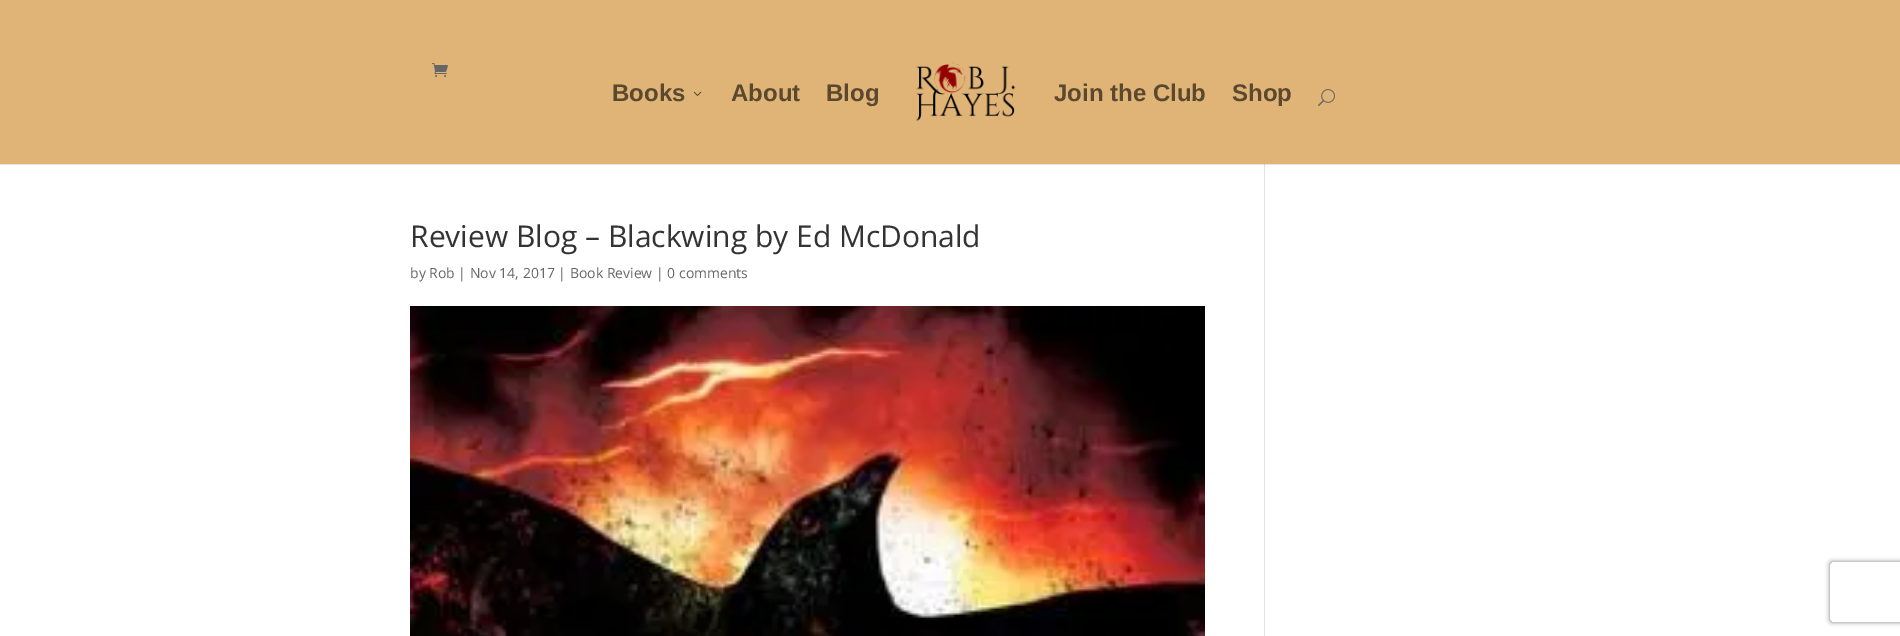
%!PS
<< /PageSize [1900 636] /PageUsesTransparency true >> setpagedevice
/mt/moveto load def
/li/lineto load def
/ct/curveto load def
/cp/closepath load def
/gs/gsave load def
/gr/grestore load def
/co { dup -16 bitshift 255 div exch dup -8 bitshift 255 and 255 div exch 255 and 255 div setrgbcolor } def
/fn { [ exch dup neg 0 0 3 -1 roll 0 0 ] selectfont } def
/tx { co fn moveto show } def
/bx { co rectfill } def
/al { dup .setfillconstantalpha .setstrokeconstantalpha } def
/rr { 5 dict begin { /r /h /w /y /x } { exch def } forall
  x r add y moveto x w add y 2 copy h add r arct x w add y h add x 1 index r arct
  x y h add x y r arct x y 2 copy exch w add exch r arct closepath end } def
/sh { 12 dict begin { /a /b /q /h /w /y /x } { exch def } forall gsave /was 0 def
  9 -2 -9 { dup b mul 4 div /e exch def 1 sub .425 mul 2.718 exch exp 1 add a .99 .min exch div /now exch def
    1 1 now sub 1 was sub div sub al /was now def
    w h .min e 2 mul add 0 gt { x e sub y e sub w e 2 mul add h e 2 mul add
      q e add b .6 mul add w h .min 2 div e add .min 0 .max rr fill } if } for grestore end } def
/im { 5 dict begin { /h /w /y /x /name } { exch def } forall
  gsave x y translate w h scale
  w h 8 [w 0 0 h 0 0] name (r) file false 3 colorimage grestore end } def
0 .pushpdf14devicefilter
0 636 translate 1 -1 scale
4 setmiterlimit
0 0 1900 636 16#FFFFFF bx
0 164 1900 1 16#E6E6E6 bx
1264 163 1 473 16#E2E2E2 bx
0 0 1900 164 16#E0B476 bx
(media/1.raw) 432 63 16 14 im
(media/2.raw) 693 91 9 5 im
(media/3.raw) 916 62 99 59 im
(media/4.raw) 1318 89 17 18 im
(media/5.raw) 410 306 795 330 im
1264 164 1 1 16#CBCBCB bx
gs
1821 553 mt 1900 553 li 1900 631 li 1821 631 li cp 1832 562 mt 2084 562 li 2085 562 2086 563 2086 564 ct 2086 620 li 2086 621 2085 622 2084 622 ct 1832 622 li 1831 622 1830 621 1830 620 ct 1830 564 li 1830 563 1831 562 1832 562 ct cp eoclip newpath
16#808080 co
1830 562 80 60 2 2.5 1 sh
gr
(Books) 612 101 /LiberationSans-Bold 24 16#5A482F tx
(About) 731 101 /LiberationSans-Bold 24 16#5A482F tx
(Blog) 826 101 /LiberationSans-Bold 24 16#5A482F tx
(Join the Club) 1054 101 /LiberationSans-Bold 24 16#5A482F tx
(Shop) 1232 101 /LiberationSans-Bold 24 16#5A482F tx
(Review Blog – Blackwing by Ed McDonald) 410 247 /OpenSans-Regular 30 16#333333 tx
(by Rob | Nov 14, 2017 | Book Review | 0 comments) 410 278 /OpenSans-Regular 14 16#666666 tx
.poppdf14devicefilter showpage
